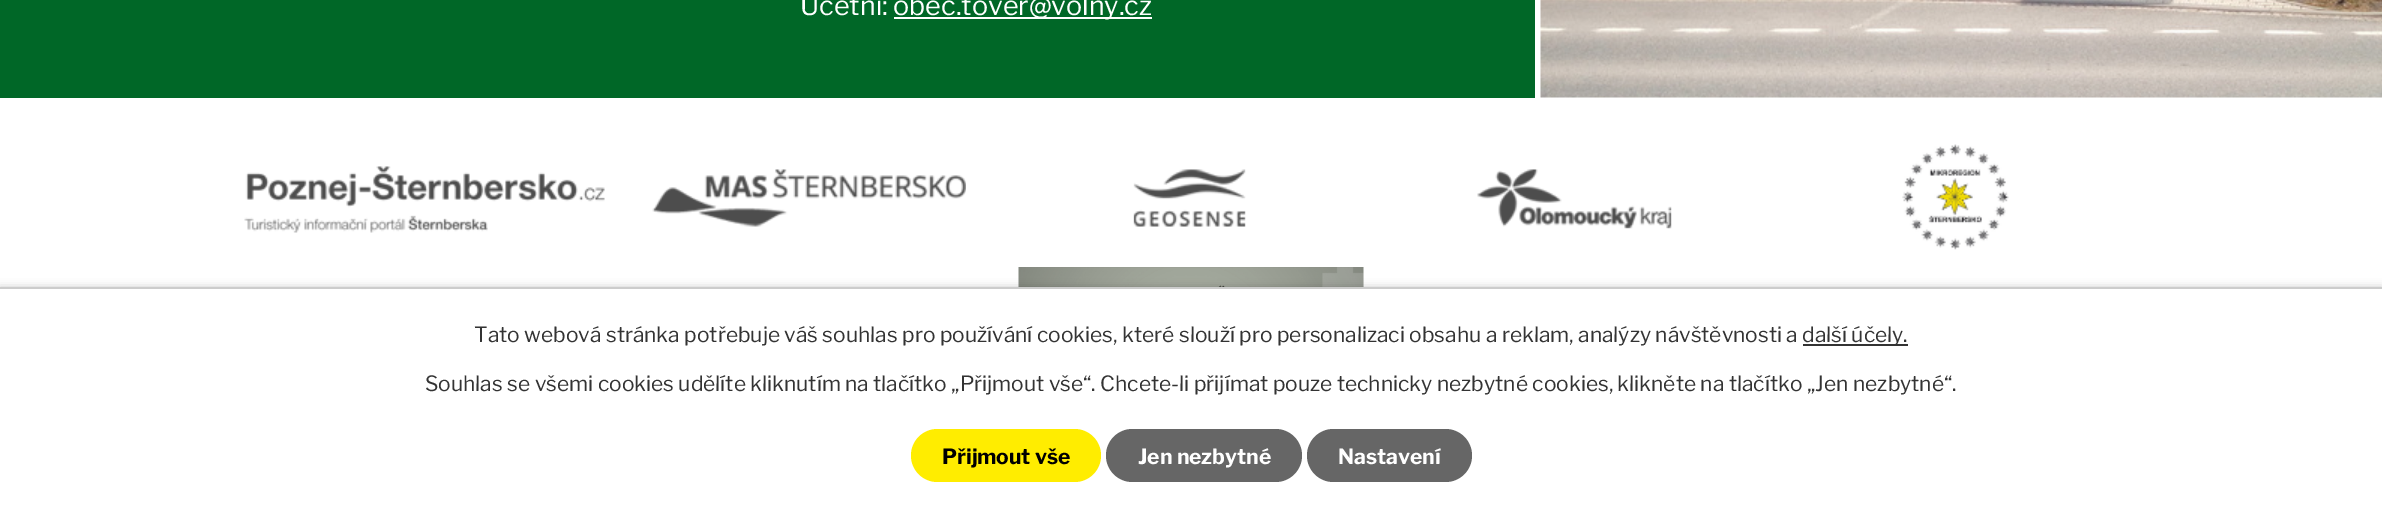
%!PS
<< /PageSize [2382 509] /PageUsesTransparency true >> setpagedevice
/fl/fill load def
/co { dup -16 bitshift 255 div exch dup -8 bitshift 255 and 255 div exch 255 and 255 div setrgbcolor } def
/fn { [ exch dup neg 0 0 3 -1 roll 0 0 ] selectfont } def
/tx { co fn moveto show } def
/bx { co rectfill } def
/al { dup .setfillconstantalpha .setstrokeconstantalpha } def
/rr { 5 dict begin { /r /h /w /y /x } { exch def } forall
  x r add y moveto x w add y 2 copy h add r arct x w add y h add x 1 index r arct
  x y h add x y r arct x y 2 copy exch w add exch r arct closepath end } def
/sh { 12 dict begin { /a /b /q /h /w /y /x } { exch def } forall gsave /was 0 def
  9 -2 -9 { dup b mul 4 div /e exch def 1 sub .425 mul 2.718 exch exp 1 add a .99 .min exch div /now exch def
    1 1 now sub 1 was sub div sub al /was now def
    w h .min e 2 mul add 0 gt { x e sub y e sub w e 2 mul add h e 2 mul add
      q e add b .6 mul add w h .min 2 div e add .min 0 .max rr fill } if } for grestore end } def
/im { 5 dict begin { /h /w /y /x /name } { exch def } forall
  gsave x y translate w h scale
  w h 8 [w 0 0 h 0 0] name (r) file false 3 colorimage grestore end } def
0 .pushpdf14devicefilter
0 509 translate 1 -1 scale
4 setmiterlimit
0 0 2382 509 16#FFFFFF bx
0 0 1535 98 16#006727 bx
894 17 258 2 16#FFFFFF bx
(media/1.raw) 1540 0 842 98 im
(media/2.raw) 244 166 361 67 im
(media/3.raw) 652 169 314 58 im
(media/4.raw) 1133 169 113 58 im
(media/5.raw) 1477 169 195 60 im
(media/6.raw) 1902 144 107 106 im
(media/7.raw) 1018 267 346 20 im
16#000000 co
0 287 2382 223 0 4 .2 sh
0 289 2382 220 16#FFFFFF bx
0 287 2382 2 16#CCCCCC bx
1803 344 105 2 16#333333 bx
16#FFED00 co
911 429 190 53 26.5 rr fl
16#666666 co
1106 429 196 53 26.5 rr fl
1307 429 165 53 26.5 rr fl
(Účetní:) 800 15 /LibreFranklin-Regular 27 16#FFFFFF tx
(obec.tover@volny.cz) 893 15 /LibreFranklin-Regular 27 16#FFFFFF tx
(Tato webová stránka potřebuje váš souhlas pro používání cookies, které slouží pro personalizaci obsahu a reklam, analýzy návštěvnosti a) 474 342 /LibreFranklin-Regular 21 16#333333 tx
(další účely.) 1802 342 /LibreFranklin-Regular 21 16#333333 tx
(Souhlas se všemi cookies udělíte kliknutím na tlačítko „Přijmout vše“. Chcete-li přijímat pouze technicky nezbytné cookies, klikněte na tlačítko „Jen nezbytné“.) 425 391 /LibreFranklin-Regular 21 16#333333 tx
(Přijmout vše) 942 464 /LibreFranklin-Bold 21 16#000000 tx
(Jen nezbytné) 1138 464 /LibreFranklin-Bold 21 16#FFFFFF tx
(Nastavení) 1338 464 /LibreFranklin-Bold 21 16#FFFFFF tx
.poppdf14devicefilter showpage
